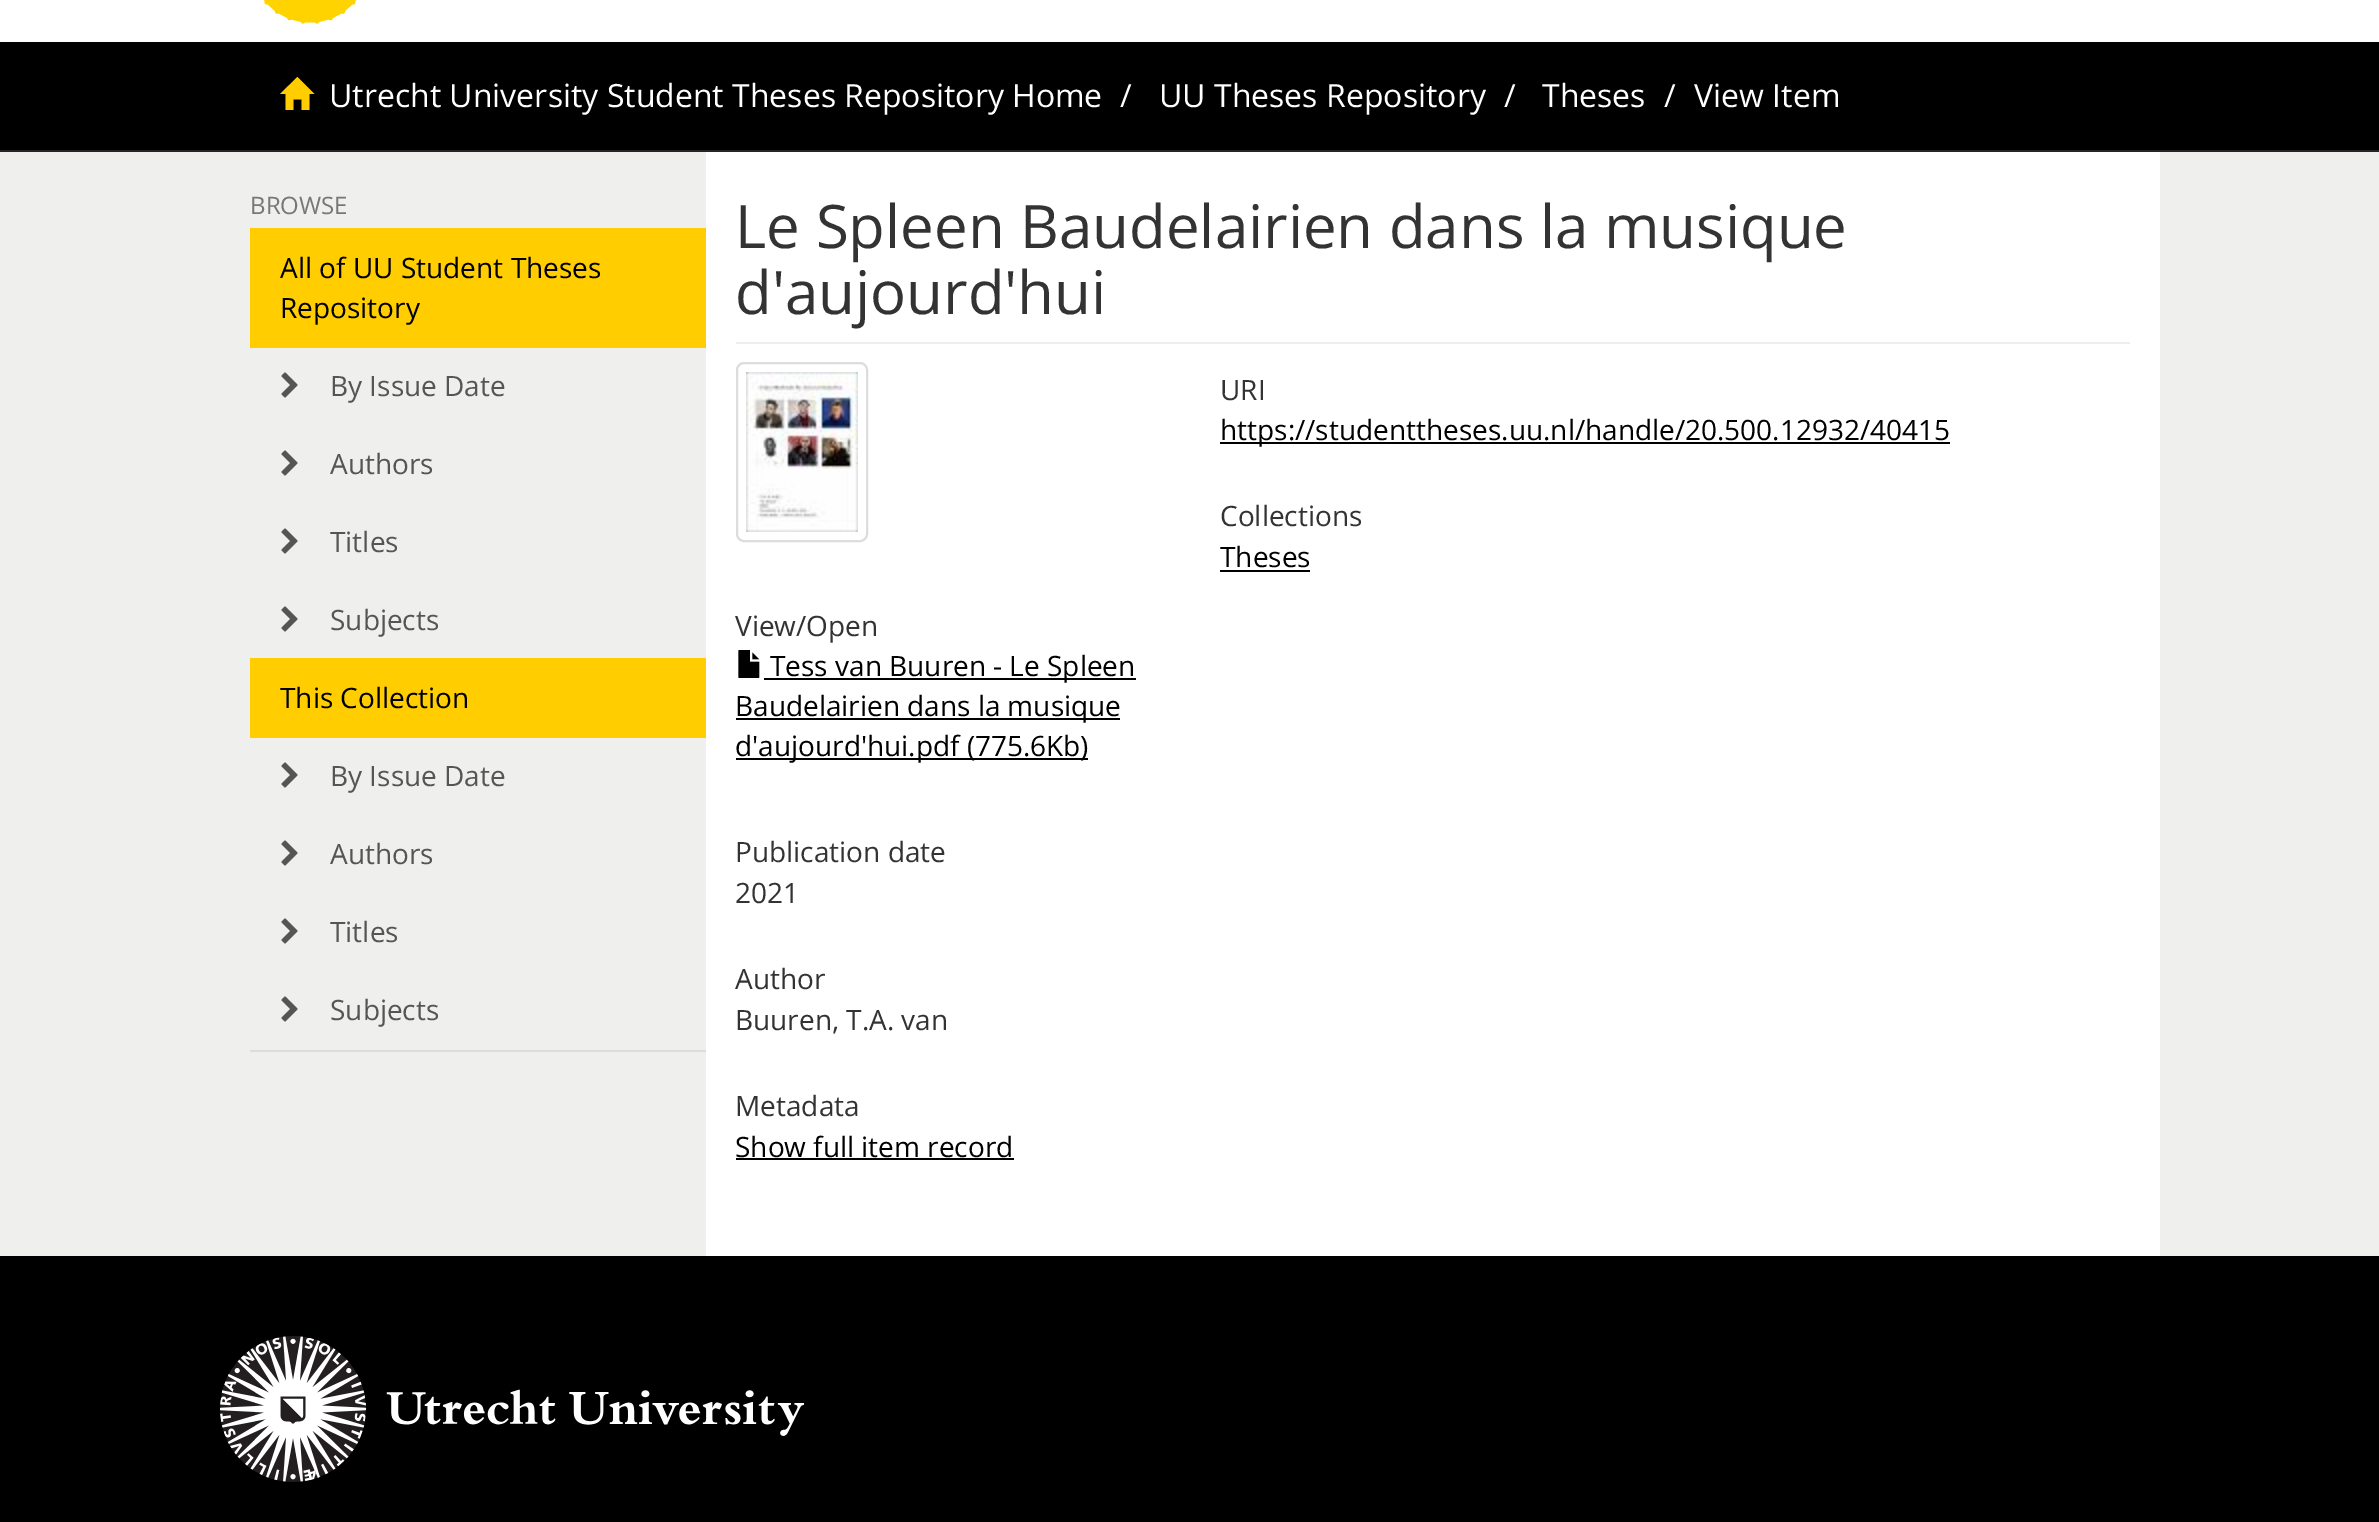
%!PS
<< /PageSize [2379 1522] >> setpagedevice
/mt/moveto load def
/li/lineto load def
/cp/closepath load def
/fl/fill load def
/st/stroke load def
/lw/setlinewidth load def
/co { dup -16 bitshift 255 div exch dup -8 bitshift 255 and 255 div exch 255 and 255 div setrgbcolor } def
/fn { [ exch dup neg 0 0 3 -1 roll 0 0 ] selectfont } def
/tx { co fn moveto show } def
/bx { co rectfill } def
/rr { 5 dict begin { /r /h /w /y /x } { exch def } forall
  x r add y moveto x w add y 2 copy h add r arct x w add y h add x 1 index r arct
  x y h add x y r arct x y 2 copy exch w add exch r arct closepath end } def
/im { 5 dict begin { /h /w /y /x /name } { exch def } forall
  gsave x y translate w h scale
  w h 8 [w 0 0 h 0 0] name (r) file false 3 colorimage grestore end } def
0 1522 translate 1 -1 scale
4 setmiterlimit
0 0 2379 1522 16#EFEFEE bx
0 0 2379 42 16#FFFFFF bx
(media/1.raw) 263 0 94 24 im
0 42 2379 108 16#000000 bx
0 150 2379 2 16#262626 bx
16#FFCD00 co
280 94 mt 297.5 77 li 314.5 94 li 309.5 94 li 309.5 110 li 301.5 110 li 301.5 99.5 li 293.5 99.5 li 293.5 110 li 285.5 110 li 285.5 94 li cp fl
250 228 456 120 16#FFCD00 bx
(media/2.raw) 281 372 17 26 im
(media/2.raw) 281 450 17 26 im
(media/2.raw) 281 528 17 26 im
(media/2.raw) 281 606 17 26 im
250 658 456 80 16#FFCD00 bx
(media/2.raw) 281 762 17 26 im
(media/2.raw) 281 840 17 26 im
(media/2.raw) 281 918 17 26 im
250 1050 456 2 16#DDDDDD bx
(media/2.raw) 281 996 17 26 im
706 152 1454 1104 16#FFFFFF bx
736 342 1394 2 16#EEEEEE bx
1220 442 730 2 16#000000 bx
1220 570 90 2 16#000000 bx
16#DDDDDD co
2 lw
737 363 130 178 7 rr st
(media/3.raw) 746 372 112 160 im
(media/4.raw) 738 650 22 28 im
764 678 372 2 16#000000 bx
736 718 384 2 16#000000 bx
736 758 352 2 16#000000 bx
736 1158 278 2 16#000000 bx
0 1256 2379 266 16#000000 bx
(media/5.raw) 220 1336 584 146 im
(Utrecht University Student Theses Repository Home) 329 107 /OpenSans-Regular 32 16#FFFFFF tx
(/) 1120 107 /OpenSans-Regular 32 16#FFFFFF tx
(UU Theses Repository) 1159 107 /OpenSans-Regular 32 16#FFFFFF tx
(/) 1504 107 /OpenSans-Regular 32 16#FFFFFF tx
(Theses) 1542 107 /OpenSans-Regular 32 16#FFFFFF tx
(/) 1664 107 /OpenSans-Regular 32 16#FFFFFF tx
(View Item) 1694 107 /OpenSans-Regular 32 16#FFFFFF tx
(BROWSE) 250 214 /OpenSans-Regular 24 16#777777 tx
(All of UU Student Theses) 280 278 /OpenSans-Regular 28 16#000000 tx
(Repository) 280 318 /OpenSans-Regular 28 16#000000 tx
(By Issue Date) 330 396 /OpenSans-Regular 28 16#555555 tx
(Authors) 330 474 /OpenSans-Regular 28 16#555555 tx
(Titles) 330 552 /OpenSans-Regular 28 16#555555 tx
(Subjects) 330 630 /OpenSans-Regular 28 16#555555 tx
(This Collection) 280 708 /OpenSans-Regular 28 16#000000 tx
(By Issue Date) 330 786 /OpenSans-Regular 28 16#555555 tx
(Authors) 330 864 /OpenSans-Regular 28 16#555555 tx
(Titles) 330 942 /OpenSans-Regular 28 16#555555 tx
(Subjects) 330 1020 /OpenSans-Regular 28 16#555555 tx
(Le Spleen Baudelairien dans la musique) 735 248 /OpenSans-Regular 60 16#333333 tx
(d'aujourd'hui) 735 314 /OpenSans-Regular 60 16#333333 tx
(URI) 1220 400 /OpenSans-Regular 28 16#333333 tx
(https://studenttheses.uu.nl/handle/20.500.12932/40415) 1220 440 /OpenSans-Regular 28 16#000000 tx
(Collections) 1220 526 /OpenSans-Regular 28 16#333333 tx
(Theses) 1220 567 /OpenSans-Regular 28 16#000000 tx
(View/Open) 735 636 /OpenSans-Regular 28 16#333333 tx
(Tess van Buuren - Le Spleen) 770 676 /OpenSans-Regular 28 16#000000 tx
(Baudelairien dans la musique) 735 716 /OpenSans-Regular 28 16#000000 tx
(d'aujourd'hui.pdf \(775.6Kb\)) 735 756 /OpenSans-Regular 28 16#000000 tx
(Publication date) 735 862 /OpenSans-Regular 28 16#333333 tx
(2021) 735 903 /OpenSans-Regular 28 16#333333 tx
(Author) 735 989 /OpenSans-Regular 28 16#333333 tx
(Buuren, T.A. van) 735 1030 /OpenSans-Regular 28 16#333333 tx
(Metadata) 735 1116 /OpenSans-Regular 28 16#333333 tx
(Show full item record) 735 1157 /OpenSans-Regular 28 16#000000 tx
showpage
